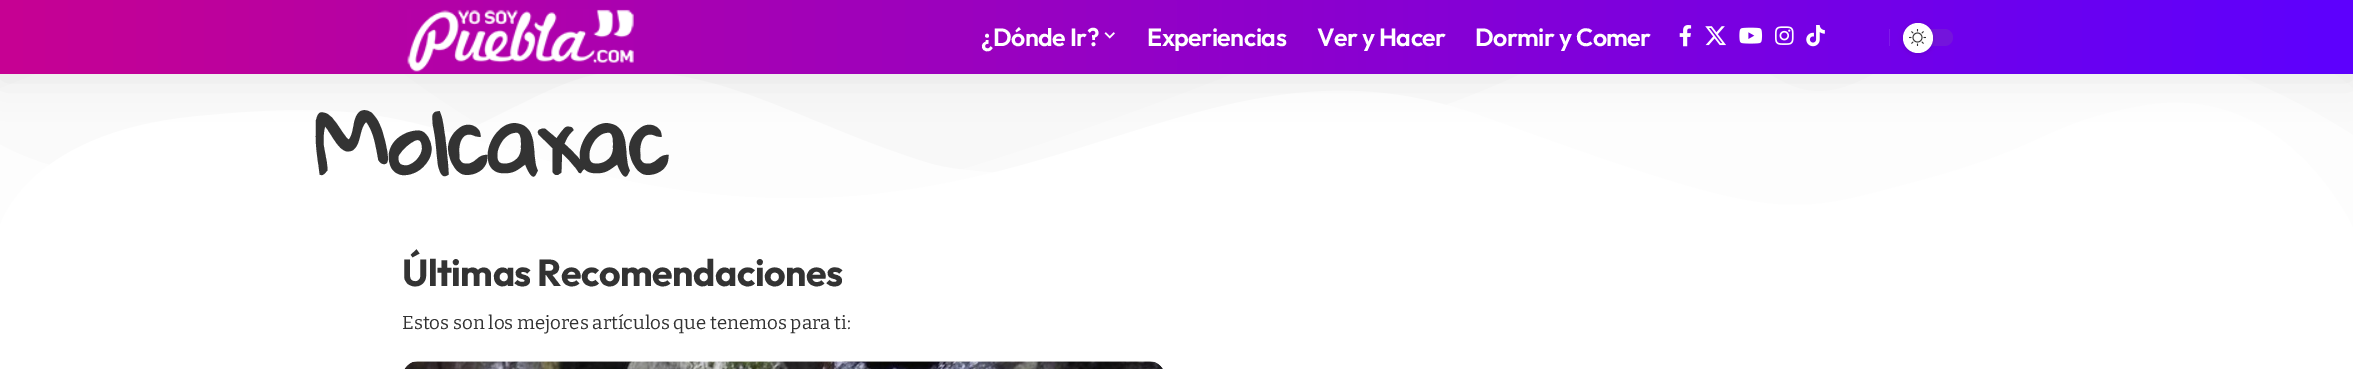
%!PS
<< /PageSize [2353 369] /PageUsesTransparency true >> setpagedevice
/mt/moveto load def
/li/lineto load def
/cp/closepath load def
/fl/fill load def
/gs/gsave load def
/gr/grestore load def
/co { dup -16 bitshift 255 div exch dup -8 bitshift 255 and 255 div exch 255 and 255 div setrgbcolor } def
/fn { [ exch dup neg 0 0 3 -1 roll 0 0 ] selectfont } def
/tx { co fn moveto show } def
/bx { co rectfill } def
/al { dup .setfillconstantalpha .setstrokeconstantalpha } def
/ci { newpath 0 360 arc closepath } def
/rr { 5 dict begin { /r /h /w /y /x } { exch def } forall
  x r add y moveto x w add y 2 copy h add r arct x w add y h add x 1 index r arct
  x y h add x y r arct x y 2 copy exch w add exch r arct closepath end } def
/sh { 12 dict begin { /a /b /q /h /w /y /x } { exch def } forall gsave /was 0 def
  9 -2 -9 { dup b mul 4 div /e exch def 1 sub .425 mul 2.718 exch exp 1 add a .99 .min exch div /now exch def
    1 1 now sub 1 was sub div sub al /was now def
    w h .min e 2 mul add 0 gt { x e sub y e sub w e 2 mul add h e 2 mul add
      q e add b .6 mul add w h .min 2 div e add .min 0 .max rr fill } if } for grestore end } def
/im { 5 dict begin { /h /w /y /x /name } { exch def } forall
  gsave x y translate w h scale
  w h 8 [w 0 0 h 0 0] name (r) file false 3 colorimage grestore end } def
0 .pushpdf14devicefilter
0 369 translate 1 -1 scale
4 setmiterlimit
0 0 2353 369 16#FFFFFF bx
0 74 2353 154 16#F8F8F8 bx
(media/9.raw) 0 74 2353 155 im
16#000000 co
0 5 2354 74 0 19 .07 sh
gs 0 0 mt 2353 0 li 2353 74 li 0 74 li cp clip newpath
<< /ShadingType 2 /ColorSpace /DeviceRGB /Coords [0 37 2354 37] /Extend [true true] /Function << /FunctionType 2 /Domain [0 1] /C0 [.78 .004 .576] /C1 [.365 0 .996] /N 1 >> >> shfill gr
(media/1.raw) 407 9 227 63 im
(media/2.raw) 1104 32 11 7 im
(media/3.raw) 1679 25 13 22 im
(media/4.raw) 1705 26 21 20 im
(media/5.raw) 1739 27 24 17 im
(media/6.raw) 1775 26 19 19 im
(media/7.raw) 1806 25 19 22 im
1889 29 1 17 16#801AEB bx
16#7414DC co
1903 29 50 17 8.5 rr fl
16#000000 co
1903 24 30 30 15 2.5 .12 sh
16#FFFFFF co
1918 38 15 ci fl
(media/8.raw) 1909 29 17 17 im
(media/10.raw) 404 361 759 8 im
/Outfit-SemiBold 25 fn
981 46 mt -.5 0 (¿Dónde Ir?) ashow
1147 46 mt -.5 0 (Experiencias) ashow
1317 46 mt -.5 0 (Ver y Hacer) ashow
1475 46 mt -.5 0 (Dormir y Comer) ashow
/GloriaHallelujah-Bold 87.5 fn
16#333333 co
314 175 mt -1.75 0 (Molcaxac) ashow
/Outfit-Bold 37.5 fn
402 286 mt -.6 0 (Últimas Recomendaciones) ashow
(Estos son los mejores artículos que tenemos para ti:) 402 329 /Bitter-Regular 18.75 16#333333 tx
.poppdf14devicefilter showpage
